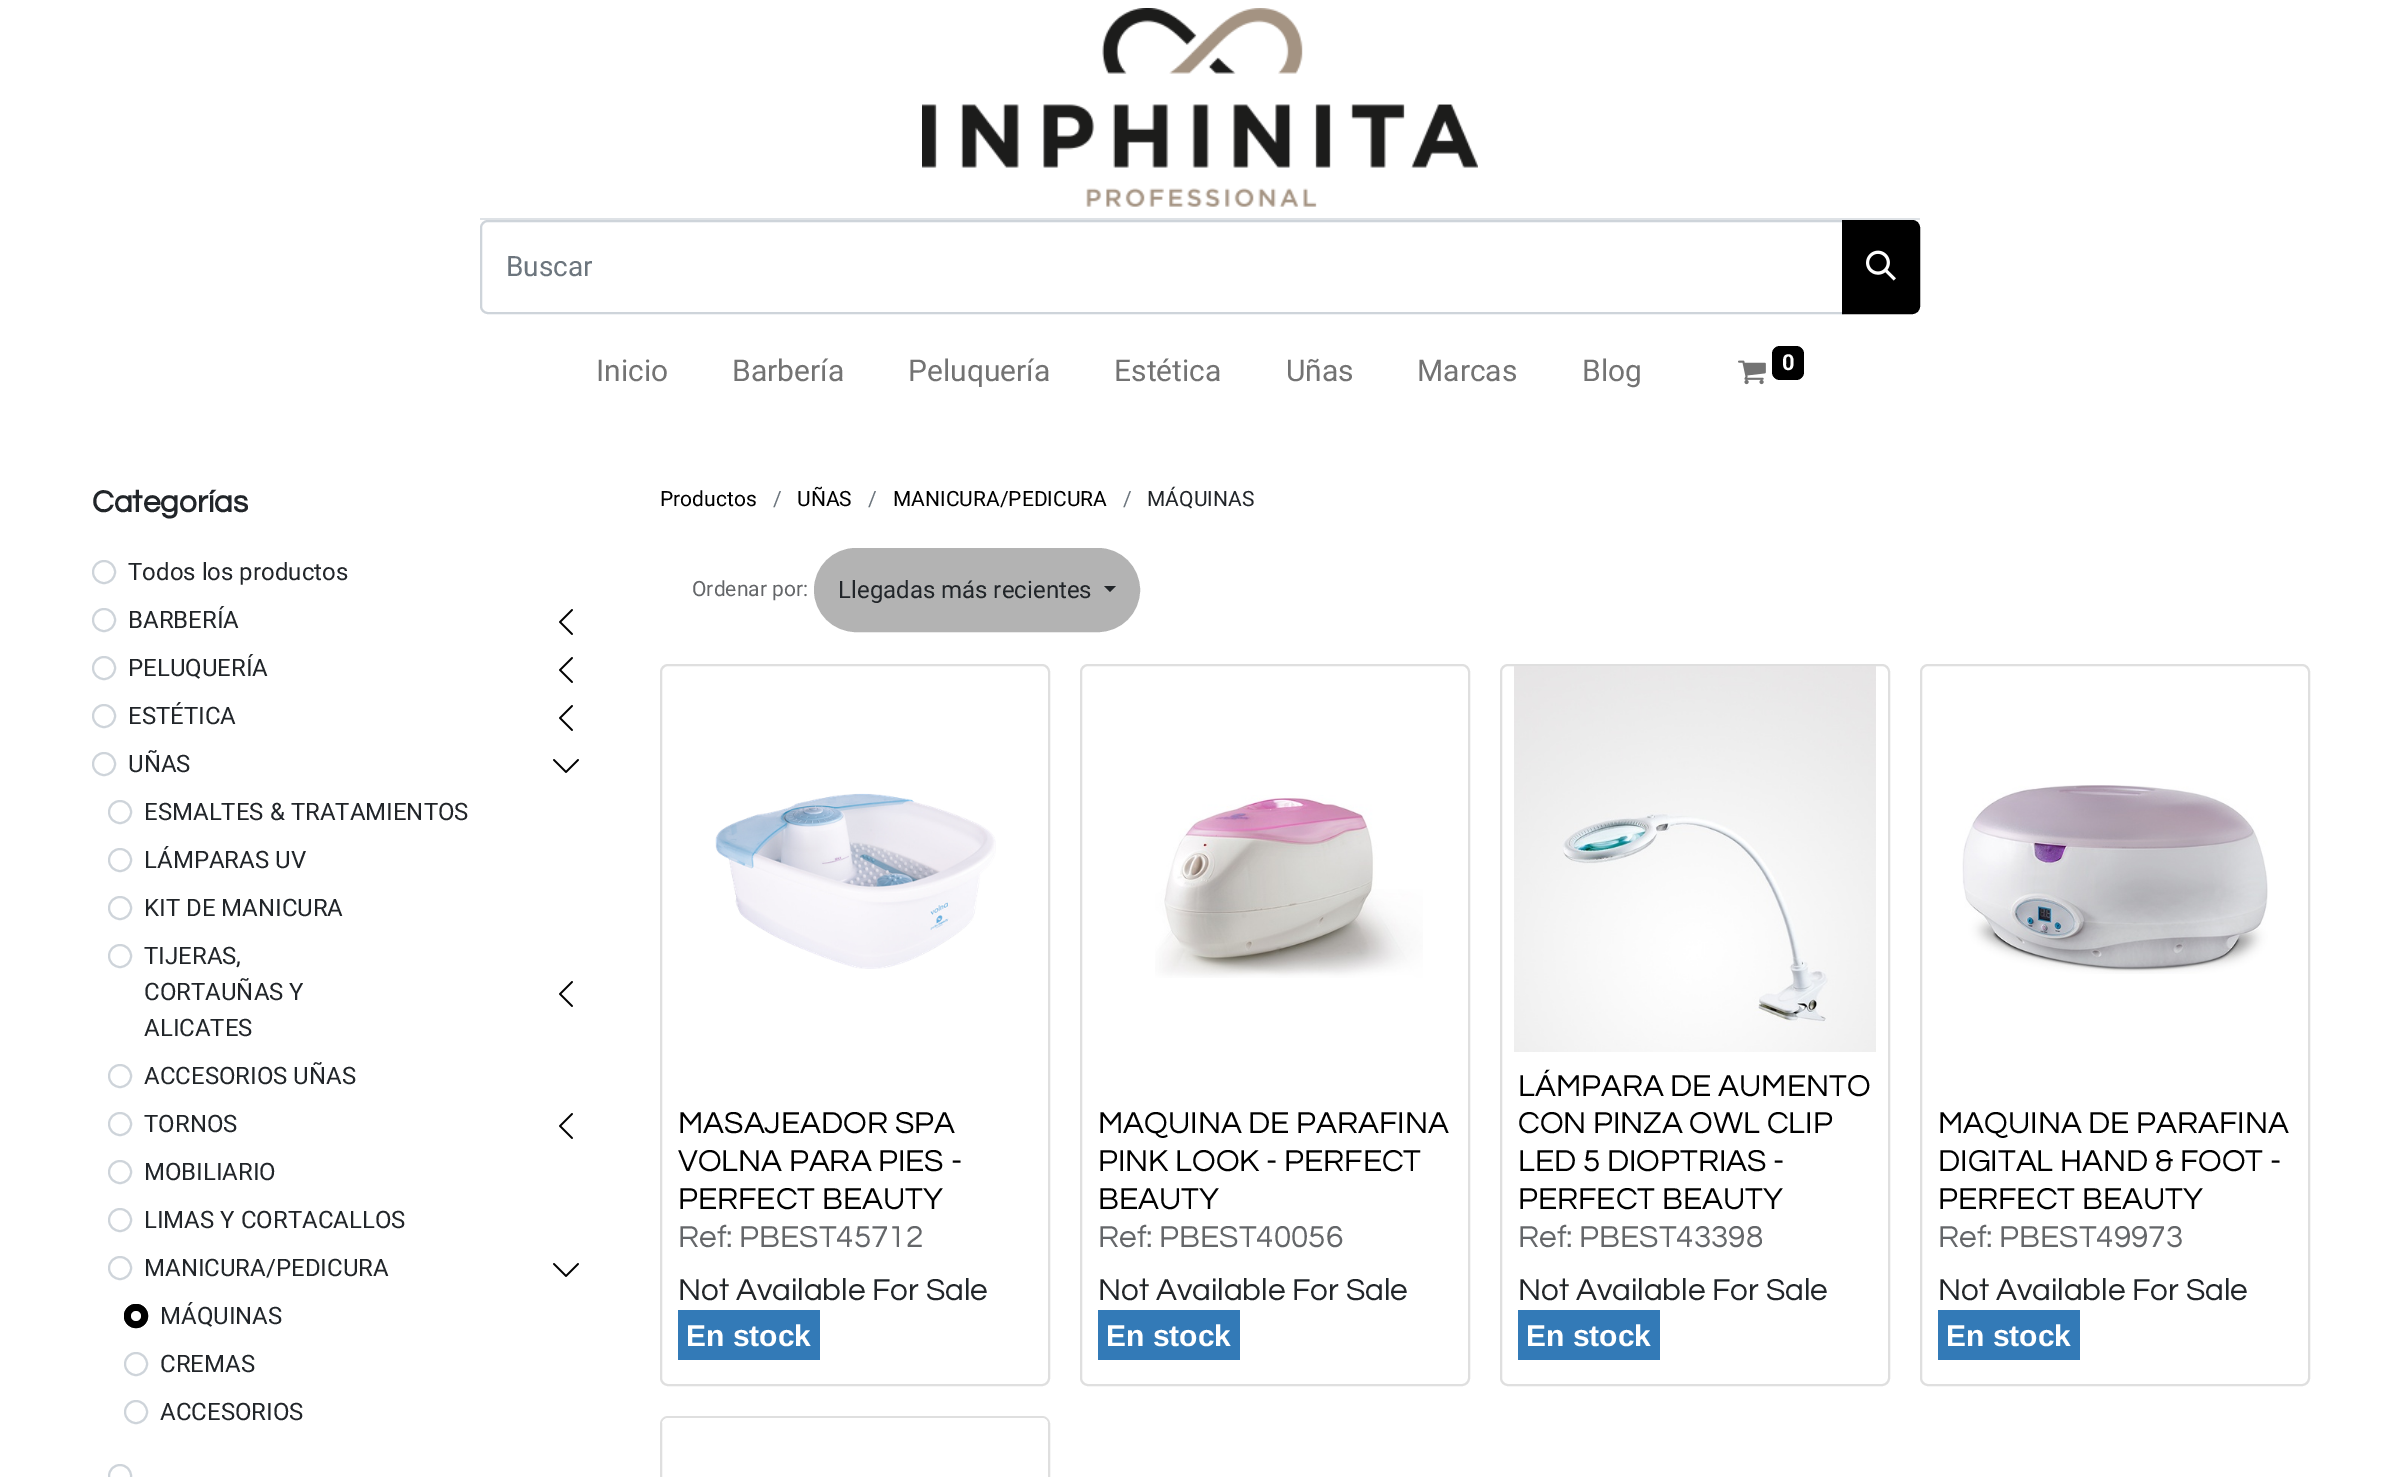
%!PS
<< /PageSize [2399 1477] >> setpagedevice
/mt/moveto load def
/li/lineto load def
/ct/curveto load def
/cp/closepath load def
/fl/fill load def
/st/stroke load def
/gs/gsave load def
/gr/grestore load def
/lw/setlinewidth load def
/co { dup -16 bitshift 255 div exch dup -8 bitshift 255 and 255 div exch 255 and 255 div setrgbcolor } def
/fn { [ exch dup neg 0 0 3 -1 roll 0 0 ] selectfont } def
/tx { co fn moveto show } def
/bx { co rectfill } def
/ci { newpath 0 360 arc closepath } def
/rr { 5 dict begin { /r /h /w /y /x } { exch def } forall
  x r add y moveto x w add y 2 copy h add r arct x w add y h add x 1 index r arct
  x y h add x y r arct x y 2 copy exch w add exch r arct closepath end } def
/im { 5 dict begin { /h /w /y /x /name } { exch def } forall
  gsave x y translate w h scale
  w h 8 [w 0 0 h 0 0] name (r) file false 3 colorimage grestore end } def
0 1477 translate 1 -1 scale
4 setmiterlimit
0 0 2399 1477 16#FFFFFF bx
(media/1.raw) 922 8 556 199 im
480 218 1440 2 16#DEE2E6 bx
16#CED4DA co
2 lw
488 221 mt 1843 221 li 1843 313 li 488 313 li 484 313 481 310 481 306 ct 481 228 li 481 224 484 221 488 221 ct cp st
16#000000 co
1844 222 mt 1912 222 li 1915.5 222 1918 224.5 1918 228 ct 1918 306 li 1918 309.5 1915.5 312 1912 312 ct 1844 312 li cp gs fl gr
4 lw
st
(media/2.raw) 1866 250 30 31 im
(media/3.raw) 1738 360 28 25 im
1772 346 32 34 8 rr fl
16#CED4DA co
2 lw
104 572 11 ci st
104 620 11 ci st
(media/4.raw) 559 609 14 26 im
104 668 11 ci st
(media/4.raw) 559 657 14 26 im
104 716 11 ci st
(media/4.raw) 559 705 14 26 im
104 764 11 ci st
(media/5.raw) 553 759 26 14 im
120 812 11 ci st
120 860 11 ci st
120 908 11 ci st
120 956 11 ci st
(media/4.raw) 559 981 14 26 im
120 1076 11 ci st
120 1124 11 ci st
(media/4.raw) 559 1113 14 26 im
120 1172 11 ci st
120 1220 11 ci st
120 1268 11 ci st
(media/5.raw) 553 1263 26 14 im
16#000000 co
136 1316 12 ci fl
16#FFFFFF co
136 1316 5 ci fl
16#000000 co
136 1316 11 ci st
16#CED4DA co
136 1364 11 ci st
136 1412 11 ci st
120 1476 11 ci st
16#B3B3B3 co
816 550 322 80 40 rr gs fl gr
4 lw
st
16#212529 co
1104 586 mt 1116 586 li 1110 592 li cp fl
16#DFDFDF co
2 lw
661 665 388 720 7 rr st
(media/6.raw) 715 793 281 176 im
678 1310 142 50 16#337AB7 bx
16#DFDFDF co
1081 665 388 720 7 rr st
(media/7.raw) 1155 795 268 183 im
1098 1310 142 50 16#337AB7 bx
16#DFDFDF co
1501 665 388 720 7 rr st
(media/8.raw) 1514 666 362 386 im
1518 1310 142 50 16#337AB7 bx
16#DFDFDF co
1921 665 388 720 7 rr st
(media/9.raw) 1962 785 306 189 im
1938 1310 142 50 16#337AB7 bx
16#DFDFDF co
661 1417 388 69 7 rr st
(media/10.raw) 662 1418 386 5 im
(Buscar) 506 276 /Heebo-Regular 28 16#6C757D tx
(Inicio) 596 381 /Roboto-Regular 30 16#737373 tx
(Barbería) 732 381 /Roboto-Regular 30 16#737373 tx
(Peluquería) 908 381 /Roboto-Regular 30 16#737373 tx
(Estética) 1114 381 /Roboto-Regular 30 16#737373 tx
(Uñas) 1286 381 /Roboto-Regular 30 16#737373 tx
(Marcas) 1417 381 /Roboto-Regular 30 16#737373 tx
(Blog) 1582 381 /Roboto-Regular 30 16#737373 tx
(0) 1782 370 /Roboto-Bold 22 16#FFFFFF tx
(Categorías) 92 512 /Questrial-Bold 31.5 16#212529 tx
(Todos los productos) 128 580 /Heebo-Regular 24 16#212529 tx
(BARBERÍA) 128 628 /Heebo-Regular 24 16#212529 tx
(PELUQUERÍA) 128 676 /Heebo-Regular 24 16#212529 tx
(ESTÉTICA) 128 724 /Heebo-Regular 24 16#212529 tx
(UÑAS) 128 772 /Heebo-Regular 24 16#212529 tx
(ESMALTES & TRATAMIENTOS) 144 820 /Heebo-Regular 24 16#212529 tx
(LÁMPARAS UV) 144 868 /Heebo-Regular 24 16#212529 tx
(KIT DE MANICURA) 144 916 /Heebo-Regular 24 16#212529 tx
(TIJERAS,) 144 964 /Heebo-Regular 24 16#212529 tx
(CORTAUÑAS Y) 144 1000 /Heebo-Regular 24 16#212529 tx
(ALICATES) 144 1036 /Heebo-Regular 24 16#212529 tx
(ACCESORIOS UÑAS) 144 1084 /Heebo-Regular 24 16#212529 tx
(TORNOS) 144 1132 /Heebo-Regular 24 16#212529 tx
(MOBILIARIO) 144 1180 /Heebo-Regular 24 16#212529 tx
(LIMAS Y CORTACALLOS) 144 1228 /Heebo-Regular 24 16#212529 tx
(MANICURA/PEDICURA) 144 1276 /Heebo-Regular 24 16#212529 tx
(MÁQUINAS) 160 1324 /Heebo-Regular 24 16#212529 tx
(CREMAS) 160 1372 /Heebo-Regular 24 16#212529 tx
(ACCESORIOS) 160 1420 /Heebo-Regular 24 16#212529 tx
(Productos) 660 506 /Heebo-Regular 21 16#000000 tx
(/) 773 506 /Heebo-Regular 21 16#6C757D tx
(UÑAS) 797 506 /Heebo-Regular 21 16#000000 tx
(/) 868 506 /Heebo-Regular 21 16#6C757D tx
(MANICURA/PEDICURA) 893 506 /Heebo-Regular 21 16#000000 tx
(/) 1123 506 /Heebo-Regular 21 16#6C757D tx
(MÁQUINAS) 1147 506 /Heebo-Regular 21 16#212529 tx
(Ordenar por:) 692 596 /Heebo-Regular 21 16#646669 tx
(Llegadas más recientes) 838 598 /Heebo-Regular 24 16#212529 tx
(MASAJEADOR SPA) 678 1133 /Questrial-Regular 31.5 16#000000 tx
(VOLNA PARA PIES -) 678 1171 /Questrial-Regular 31.5 16#000000 tx
(PERFECT BEAUTY) 678 1209 /Questrial-Regular 31.5 16#000000 tx
(Ref: PBEST45712) 678 1247 /Questrial-Regular 31.5 16#646669 tx
(Not Available For Sale) 678 1300 /Questrial-Regular 31.5 16#212529 tx
(En stock) 686 1346 /LiberationSans-Bold 30 16#FFFFFF tx
(MAQUINA DE PARAFINA) 1098 1133 /Questrial-Regular 31.5 16#000000 tx
(PINK LOOK - PERFECT) 1098 1171 /Questrial-Regular 31.5 16#000000 tx
(BEAUTY) 1098 1209 /Questrial-Regular 31.5 16#000000 tx
(Ref: PBEST40056) 1098 1247 /Questrial-Regular 31.5 16#646669 tx
(Not Available For Sale) 1098 1300 /Questrial-Regular 31.5 16#212529 tx
(En stock) 1106 1346 /LiberationSans-Bold 30 16#FFFFFF tx
(LÁMPARA DE AUMENTO) 1518 1096 /Questrial-Regular 31.5 16#000000 tx
(CON PINZA OWL CLIP) 1518 1133 /Questrial-Regular 31.5 16#000000 tx
(LED 5 DIOPTRIAS -) 1518 1171 /Questrial-Regular 31.5 16#000000 tx
(PERFECT BEAUTY) 1518 1209 /Questrial-Regular 31.5 16#000000 tx
(Ref: PBEST43398) 1518 1247 /Questrial-Regular 31.5 16#646669 tx
(Not Available For Sale) 1518 1300 /Questrial-Regular 31.5 16#212529 tx
(En stock) 1526 1346 /LiberationSans-Bold 30 16#FFFFFF tx
(MAQUINA DE PARAFINA) 1938 1133 /Questrial-Regular 31.5 16#000000 tx
(DIGITAL HAND & FOOT -) 1938 1171 /Questrial-Regular 31.5 16#000000 tx
(PERFECT BEAUTY) 1938 1209 /Questrial-Regular 31.5 16#000000 tx
(Ref: PBEST49973) 1938 1247 /Questrial-Regular 31.5 16#646669 tx
(Not Available For Sale) 1938 1300 /Questrial-Regular 31.5 16#212529 tx
(En stock) 1946 1346 /LiberationSans-Bold 30 16#FFFFFF tx
showpage
